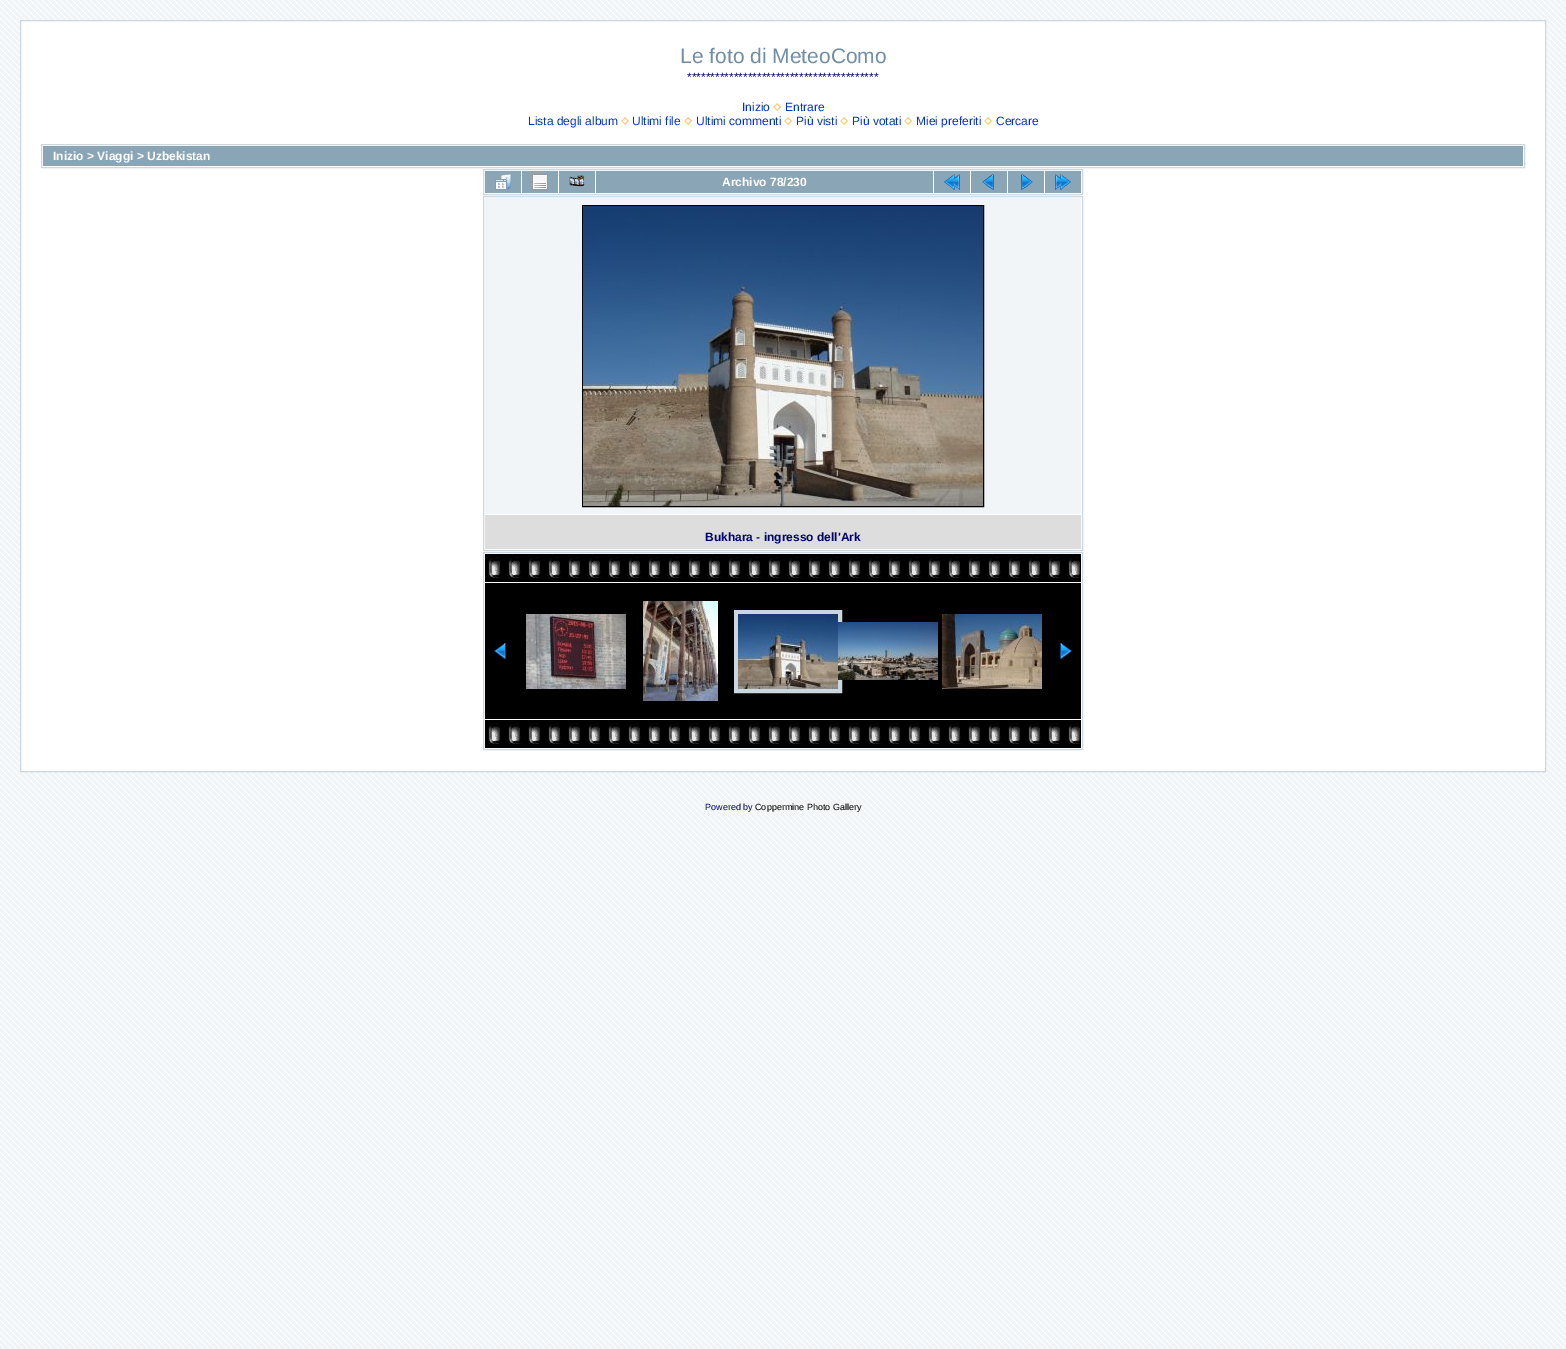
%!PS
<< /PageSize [1566 1349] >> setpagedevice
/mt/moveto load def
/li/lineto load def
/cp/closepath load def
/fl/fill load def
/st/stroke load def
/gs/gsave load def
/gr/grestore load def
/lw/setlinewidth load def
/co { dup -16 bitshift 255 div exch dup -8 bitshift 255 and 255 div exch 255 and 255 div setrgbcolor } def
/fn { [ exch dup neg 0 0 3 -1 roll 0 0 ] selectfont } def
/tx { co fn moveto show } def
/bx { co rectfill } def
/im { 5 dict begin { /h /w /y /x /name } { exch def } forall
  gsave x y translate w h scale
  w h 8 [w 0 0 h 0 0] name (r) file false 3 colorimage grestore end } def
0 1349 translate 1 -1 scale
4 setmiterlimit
0 0 1566 1349 16#F2F5F7 bx
(media/1.raw) 0 0 1566 1349 im
16#FFFFFF co
20.5 20.5 mt 1545.5 20.5 li 1545.5 771.5 li 20.5 771.5 li cp gs fl gr
16#CCD7E0 co
st
(media/2.raw) 773 103 8 8 im
(media/2.raw) 621 117 8 8 im
(media/2.raw) 684 117 8 8 im
(media/2.raw) 784 117 8 8 im
(media/2.raw) 840 117 8 8 im
(media/2.raw) 904 117 8 8 im
(media/2.raw) 984 117 8 8 im
41.5 144.5 1483 23 rectstroke
43 146 1480 20 16#8AA5B5 bx
16#CCD7E0 co
483.5 169.5 599 25 rectstroke
485 171 36 22 16#8AA5B5 bx
(media/3.raw) 495 174 16 16 im
522 171 36 22 16#8AA5B5 bx
(media/4.raw) 532 174 16 16 im
559 171 36 22 16#8AA5B5 bx
(media/5.raw) 569 175 16 12 im
596 171 337 22 16#8AA5B5 bx
934 171 36 22 16#8AA5B5 bx
(media/6.raw) 944 174 16 16 im
971 171 36 22 16#8AA5B5 bx
(media/7.raw) 982 174 12 16 im
1008 171 36 22 16#8AA5B5 bx
(media/8.raw) 1021 174 12 16 im
1045 171 36 22 16#8AA5B5 bx
(media/9.raw) 1055 174 16 16 im
16#CCD7E0 co
483.5 196.5 599 354 rectstroke
485 198 596 316 16#F2F5F7 bx
16#000000 co
582.5 205.5 401 301 rectstroke
(media/10.raw) 583 206 400 300 im
485 515 596 34 16#DDDDDD bx
16#CCD7E0 co
483.5 552.5 599 197 rectstroke
485 554 596 28 16#000000 bx
(media/11.raw) 488 554 593 24 im
485 583 596 136 16#000000 bx
(media/12.raw) 494 643 12 16 im
(media/13.raw) 526 614 100 75 im
(media/14.raw) 643 601 75 100 im
16#CBD7DE co
4 lw
736 612 104 79 rectstroke
(media/15.raw) 738 614 100 75 im
(media/16.raw) 838 622 100 58 im
(media/17.raw) 942 614 100 75 im
(media/18.raw) 1060 643 12 16 im
485 720 596 28 16#000000 bx
(media/11.raw) 488 720 593 24 im
(Le foto di MeteoComo) 680 63 /LiberationSans-Regular 21 16#718EA5 tx
(*****************************************) 687 81 /LiberationSans-Regular 12 16#000666 tx
(Inizio) 742 111 /LiberationSans-Regular 12 16#0033CC tx
(Entrare) 785 111 /LiberationSans-Regular 12 16#0033CC tx
(Lista degli album) 528 125 /LiberationSans-Regular 12 16#0033CC tx
(Ultimi file) 632 125 /LiberationSans-Regular 12 16#0033CC tx
(Ultimi commenti) 696 125 /LiberationSans-Regular 12 16#0033CC tx
(Più visti) 796 125 /LiberationSans-Regular 12 16#0033CC tx
(Più votati) 852 125 /LiberationSans-Regular 12 16#0033CC tx
(Miei preferiti) 916 125 /LiberationSans-Regular 12 16#0033CC tx
(Cercare) 996 125 /LiberationSans-Regular 12 16#0033CC tx
(Inizio > Viaggi > Uzbekistan) 53 160 /LiberationSans-Bold 12 16#FFFFFF tx
(Archivo 78/230) 722 186 /LiberationSans-Bold 12 16#FFFFFF tx
(Bukhara - ingresso dell'Ark) 705 541 /LiberationSans-Bold 12 16#000666 tx
(Powered by) 705 810 /LiberationSans-Regular 9 16#000666 tx
(Coppermine Photo Gallery) 755 810 /LiberationSans-Regular 9 16#000000 tx
showpage
